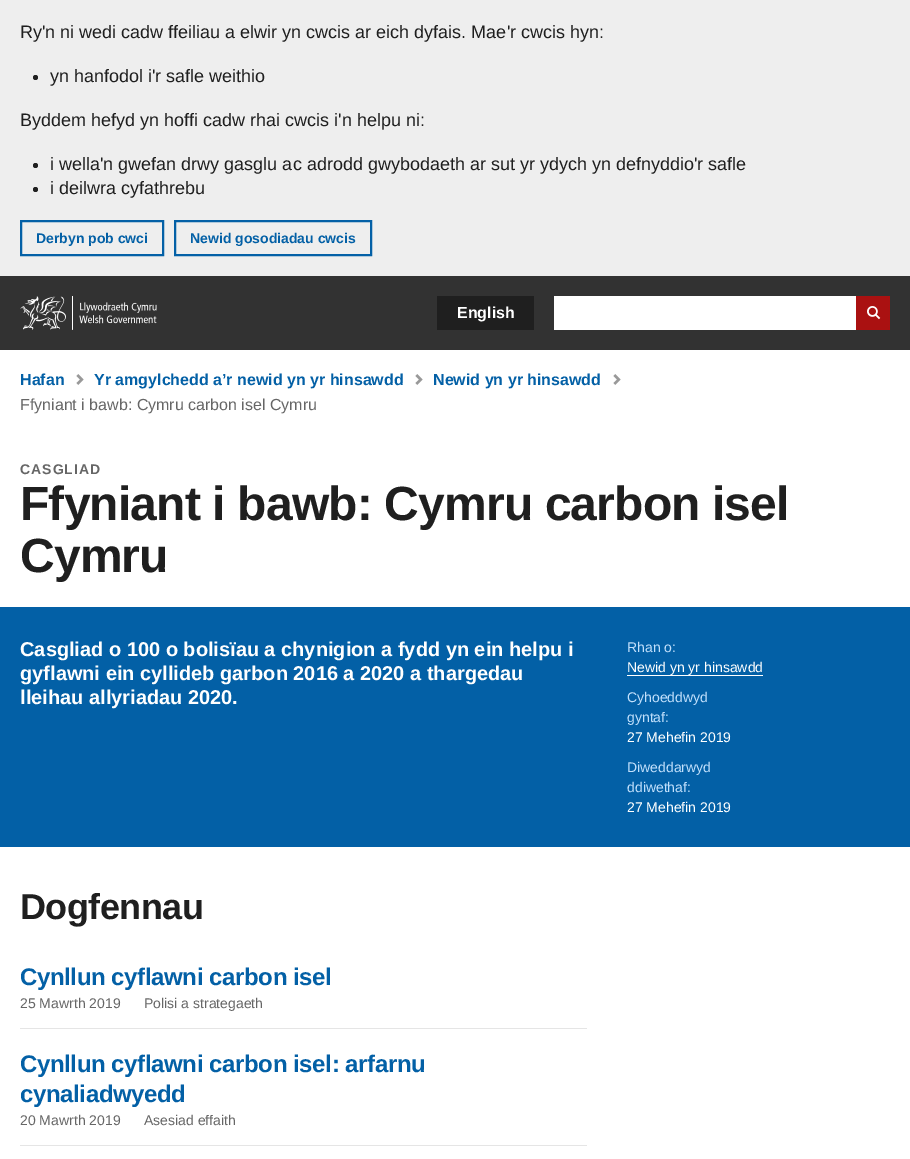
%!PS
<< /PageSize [910 1159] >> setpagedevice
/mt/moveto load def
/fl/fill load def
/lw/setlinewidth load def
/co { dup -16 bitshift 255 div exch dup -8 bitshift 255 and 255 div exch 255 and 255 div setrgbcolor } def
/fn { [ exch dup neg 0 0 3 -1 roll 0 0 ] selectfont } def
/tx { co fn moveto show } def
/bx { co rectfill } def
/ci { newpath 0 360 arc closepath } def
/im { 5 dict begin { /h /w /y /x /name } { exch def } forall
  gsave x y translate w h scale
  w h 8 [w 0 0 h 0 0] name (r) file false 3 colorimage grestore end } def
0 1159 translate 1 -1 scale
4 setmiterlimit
0 0 910 1159 16#EEEEEE bx
16#1F1F1F co
35.5 77.5 2.5 ci fl
35.5 165.5 2.5 ci fl
35.5 189.5 2.5 ci fl
16#0360A6 co
2 lw
21 221 142 34 rectstroke
175 221 196 34 rectstroke
0 276 910 74 16#323232 bx
(media/1.raw) 20 296 137 34 im
437 296 97 34 16#1F1F1F bx
554 296 302 34 16#FFFFFF bx
856 296 34 34 16#AA1111 bx
(media/2.raw) 867 306 14 14 im
0 350 910 809 16#FFFFFF bx
(media/3.raw) 76 374 8 11 im
(media/3.raw) 415 374 8 11 im
(media/3.raw) 613 374 8 11 im
0 607 910 240 16#0360A6 bx
627 675 136 1 16#FFFFFF bx
20 1028 567 1 16#E5E5E5 bx
20 1145 567 1 16#E5E5E5 bx
(Ry'n ni wedi cadw ffeiliau a elwir yn cwcis ar eich dyfais. Mae'r cwcis hyn:) 20 38 /LiberationSans-Regular 18 16#1F1F1F tx
(yn hanfodol i'r safle weithio) 50 82 /LiberationSans-Regular 18 16#1F1F1F tx
(Byddem hefyd yn hoffi cadw rhai cwcis i'n helpu ni:) 20 126 /LiberationSans-Regular 18 16#1F1F1F tx
(i wella'n gwefan drwy gasglu ac adrodd gwybodaeth ar sut yr ydych yn defnyddio'r safle) 50 170 /LiberationSans-Regular 18 16#1F1F1F tx
(i deilwra cyfathrebu) 50 194 /LiberationSans-Regular 18 16#1F1F1F tx
(Derbyn pob cwci) 36 243 /LiberationSans-Bold 14 16#0360A6 tx
(Newid gosodiadau cwcis) 190 243 /LiberationSans-Bold 14 16#0360A6 tx
(English) 457 318 /LiberationSans-Bold 16 16#FFFFFF tx
(Hafan) 20 385 /LiberationSans-Bold 16 16#0360A6 tx
(Yr amgylchedd a’r newid yn yr hinsawdd) 94 385 /LiberationSans-Bold 16 16#0360A6 tx
(Newid yn yr hinsawdd) 433 385 /LiberationSans-Bold 16 16#0360A6 tx
(Ffyniant i bawb: Cymru carbon isel Cymru) 20 410 /LiberationSans-Regular 16 16#666666 tx
/LiberationSans-Bold 14 fn
20 474 mt 1 0 (CASGLIAD) ashow
/LiberationSans-Bold 48 fn
16#1F1F1F co
20 520 mt -.85 0 (Ffyniant i bawb: Cymru carbon isel) ashow
20 572 mt -.85 0 (Cymru) ashow
(Casgliad o 100 o bolisïau a chynigion a fydd yn ein helpu i) 20 656 /LiberationSans-Bold 20 16#FFFFFF tx
(gyflawni ein cyllideb garbon 2016 a 2020 a thargedau) 20 680 /LiberationSans-Bold 20 16#FFFFFF tx
(lleihau allyriadau 2020.) 20 704 /LiberationSans-Bold 20 16#FFFFFF tx
(Rhan o:) 627 652 /LiberationSans-Regular 14 16#C2E0FC tx
(Newid yn yr hinsawdd) 627 672 /LiberationSans-Regular 14 16#FFFFFF tx
(Cyhoeddwyd) 627 702 /LiberationSans-Regular 14 16#C2E0FC tx
(gyntaf:) 627 722 /LiberationSans-Regular 14 16#C2E0FC tx
(27 Mehefin 2019) 627 742 /LiberationSans-Regular 14 16#FFFFFF tx
(Diweddarwyd) 627 772 /LiberationSans-Regular 14 16#C2E0FC tx
(ddiwethaf:) 627 792 /LiberationSans-Regular 14 16#C2E0FC tx
(27 Mehefin 2019) 627 812 /LiberationSans-Regular 14 16#FFFFFF tx
/LiberationSans-Bold 36 fn
16#1F1F1F co
20 919 mt -.5 0 (Dogfennau) ashow
/LiberationSans-Bold 24 fn
16#0360A6 co
20 985 mt -.4 0 (Cynllun cyflawni carbon isel) ashow
(25 Mawrth 2019) 20 1008 /LiberationSans-Regular 14 16#666666 tx
(Polisi a strategaeth) 144 1008 /LiberationSans-Regular 14 16#666666 tx
/LiberationSans-Bold 24 fn
16#0360A6 co
20 1072 mt -.4 0 (Cynllun cyflawni carbon isel: arfarnu) ashow
20 1102 mt -.4 0 (cynaliadwyedd) ashow
(20 Mawrth 2019) 20 1125 /LiberationSans-Regular 14 16#666666 tx
(Asesiad effaith) 144 1125 /LiberationSans-Regular 14 16#666666 tx
showpage
